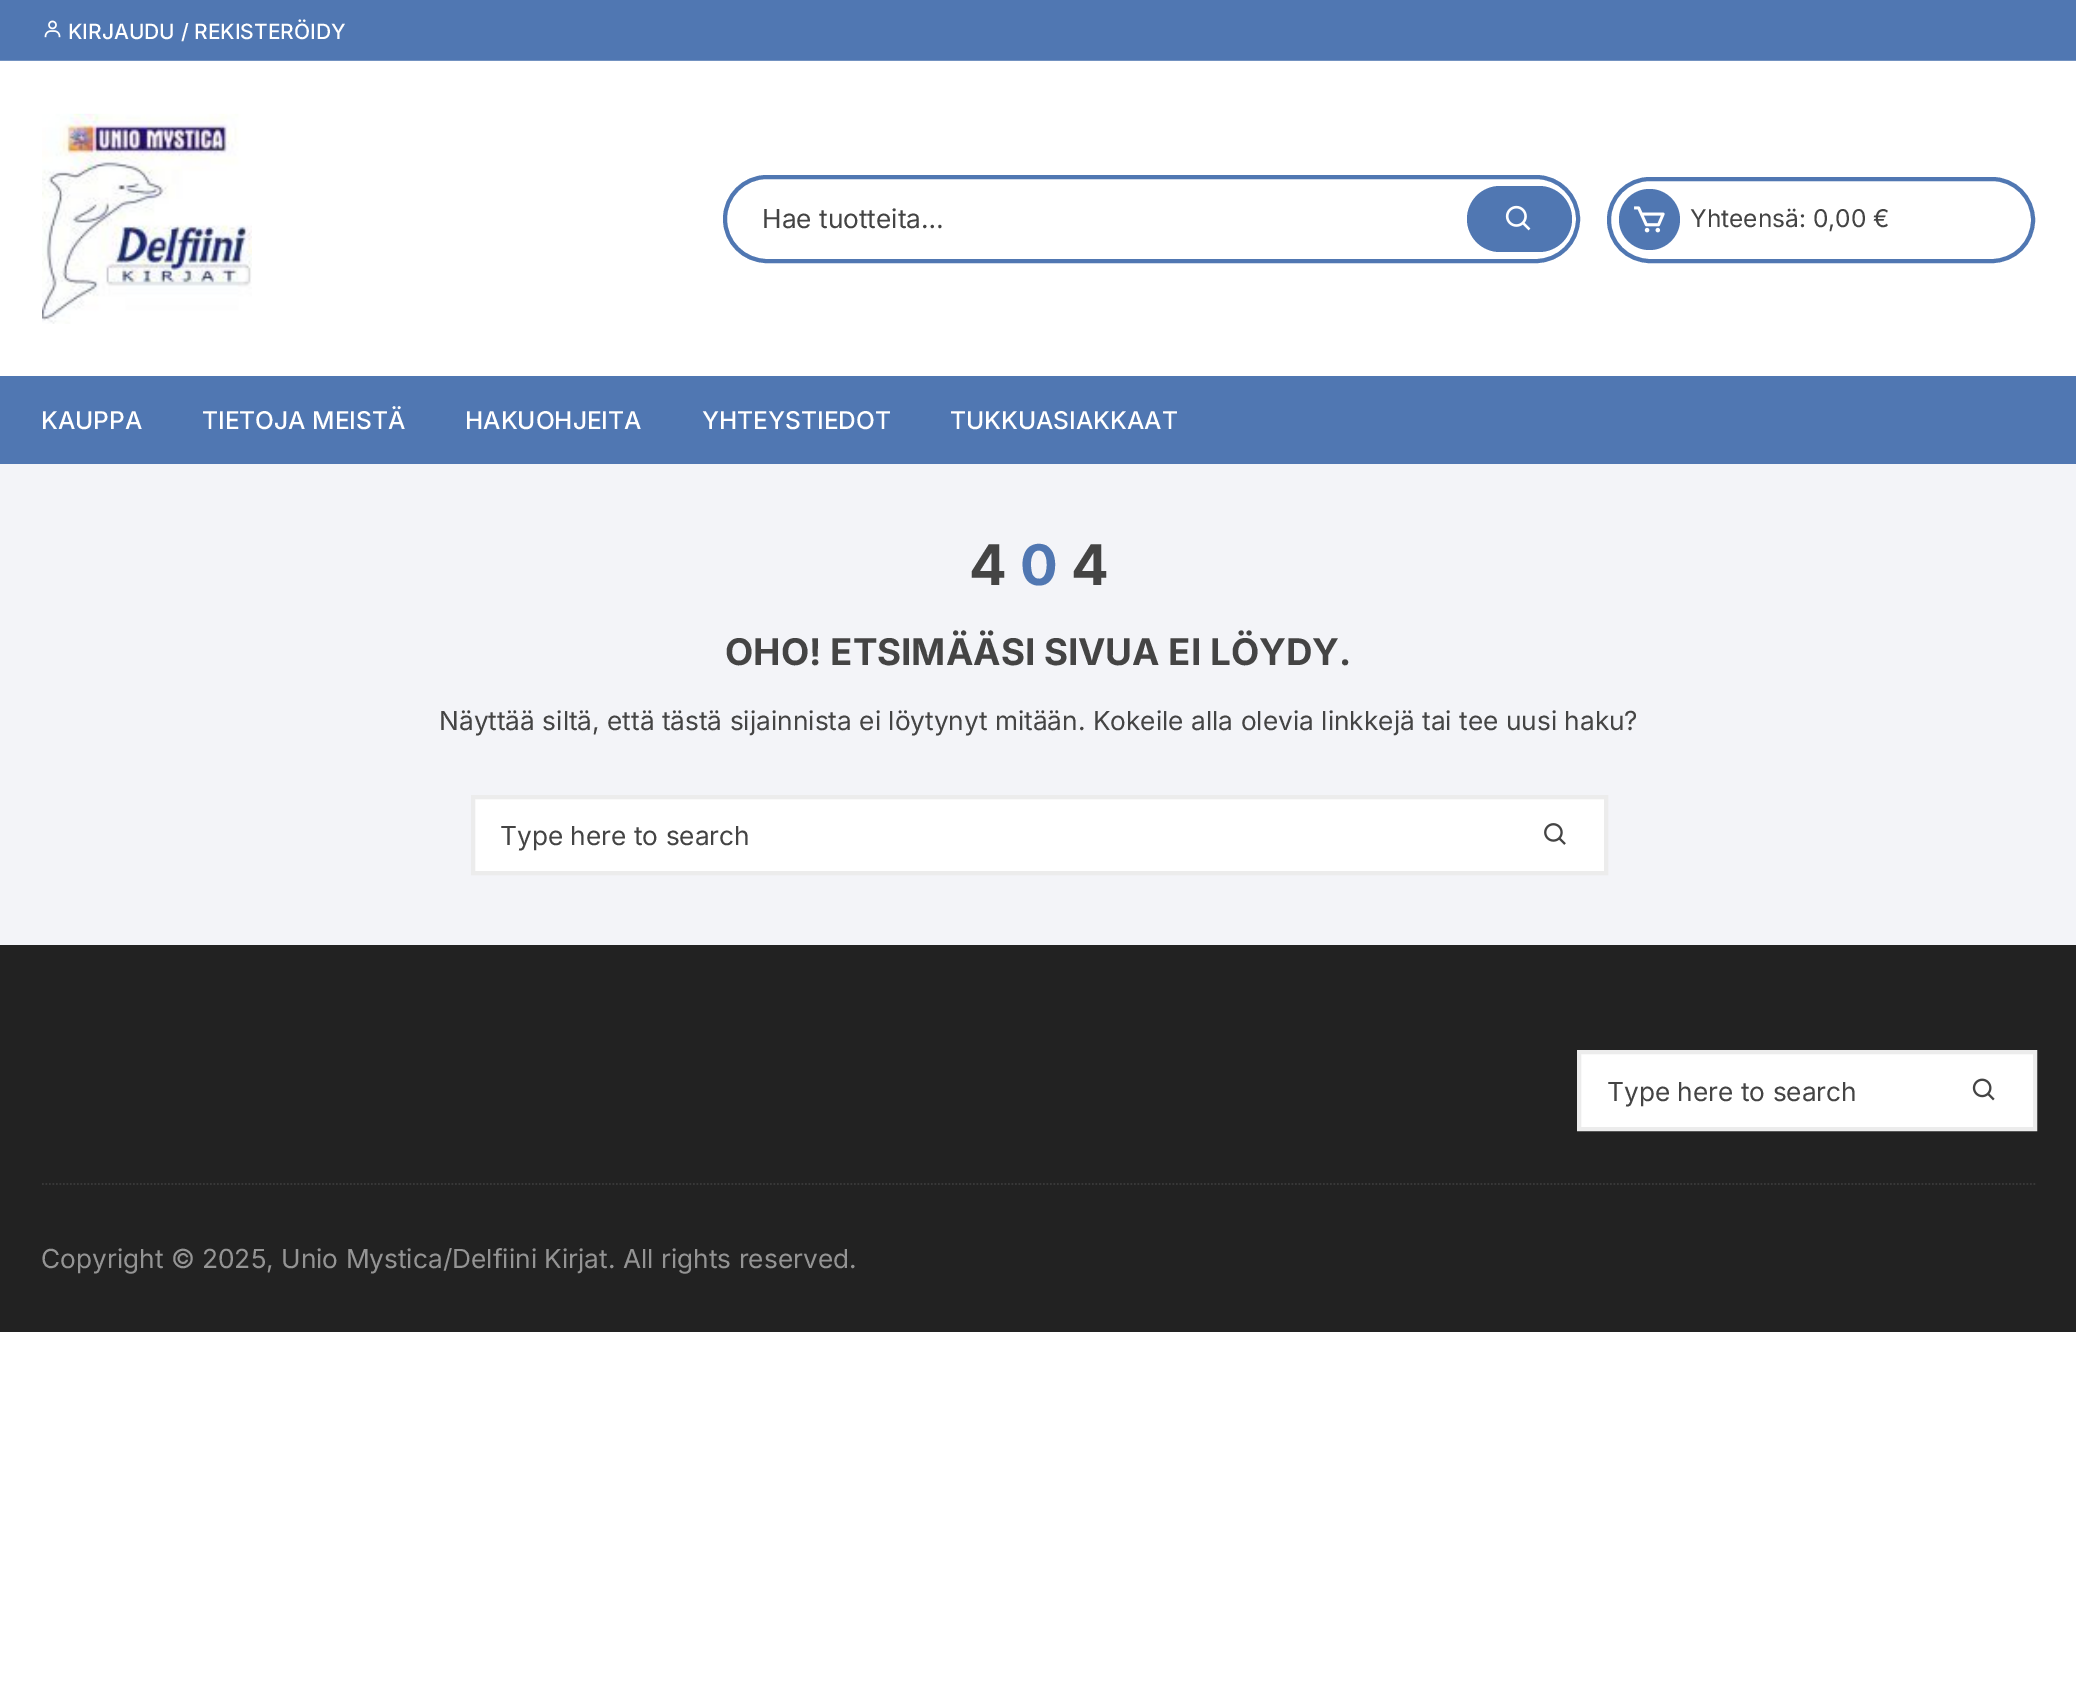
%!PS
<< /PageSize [2076 1685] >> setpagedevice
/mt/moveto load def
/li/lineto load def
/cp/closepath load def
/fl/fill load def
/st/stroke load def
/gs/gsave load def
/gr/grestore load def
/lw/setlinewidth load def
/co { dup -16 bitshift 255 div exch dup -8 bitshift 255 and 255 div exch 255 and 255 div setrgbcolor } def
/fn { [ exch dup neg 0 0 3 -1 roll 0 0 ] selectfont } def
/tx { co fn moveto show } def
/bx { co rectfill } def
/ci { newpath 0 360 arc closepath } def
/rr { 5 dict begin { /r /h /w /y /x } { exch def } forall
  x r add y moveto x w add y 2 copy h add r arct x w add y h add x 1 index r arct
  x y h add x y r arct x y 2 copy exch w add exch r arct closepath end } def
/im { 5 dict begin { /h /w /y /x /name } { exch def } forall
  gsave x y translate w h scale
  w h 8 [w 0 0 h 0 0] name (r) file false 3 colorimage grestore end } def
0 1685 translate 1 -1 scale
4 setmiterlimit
0 0 2076 1685 16#FFFFFF bx
0 464 2076 481 16#F3F4F8 bx
0 0 2076 60 16#5077B2 bx
0 60 2076 1 16#7392C1 bx
(media/1.raw) 44 20 17 18 im
(media/2.raw) 42 113 210 211 im
16#5077B2 co
4 lw
725 177 853 84 42 rr st
1467 186 105 66 33 rr fl
(media/3.raw) 1505 205 26 26 im
1609 179 424 82 41 rr st
1649.5 219.5 30.5 ci fl
(media/4.raw) 1634 206 31 27 im
0 376 2076 88 16#5077B2 bx
16#FFFFFF co
473 797 mt 1606 797 li 1606 873 li 473 873 li cp gs fl gr
16#ECECEC co
st
(media/5.raw) 1544 823 22 22 im
0 945 2076 387 16#222222 bx
16#383838 co
1.8 lw
[1.75 1.75] 0 setdash
42 1184 mt 2037 1184 li st
16#FFFFFF co
1579 1052 mt 2035 1052 li 2035 1129 li 1579 1129 li cp gs fl gr
16#ECECEC co
4 lw
[] 0 setdash
st
(media/6.raw) 1972 1078 23 23 im
(KIRJAUDU / REKISTERÖIDY) 68 39 /Inter-Medium 21 16#FFFFFF tx
(Hae tuotteita…) 762 228 /Inter-Regular 26.25 16#444444 tx
(Yhteensä: 0,00 €) 1690 227 /Inter-Regular 24.5 16#444444 tx
(KAUPPA) 41 429 /Inter-Medium 24.5 16#FFFFFF tx
(TIETOJA MEISTÄ) 202 429 /Inter-Medium 24.5 16#FFFFFF tx
(HAKUOHJEITA) 465 429 /Inter-Medium 24.5 16#FFFFFF tx
(YHTEYSTIEDOT) 702 429 /Inter-Medium 24.5 16#FFFFFF tx
(TUKKUASIAKKAAT) 950 429 /Inter-Medium 24.5 16#FFFFFF tx
(4) 969 585 /Inter-Bold 56 16#444444 tx
(0) 1020 585 /Inter-Bold 56 16#5077B2 tx
(4) 1071 585 /Inter-Bold 56 16#444444 tx
(OHO! ETSIMÄÄSI SIVUA EI LÖYDY.) 725 665 /Inter-Bold 36.75 16#444444 tx
(Näyttää siltä, että tästä sijainnista ei löytynyt mitään. Kokeile alla olevia linkkejä tai tee uusi haku?) 439 730 /Inter-Regular 26.25 16#444444 tx
(Type here to search) 500 845 /Inter-Regular 26.25 16#444444 tx
(Type here to search) 1607 1101 /Inter-Regular 26.25 16#444444 tx
(Copyright © 2025, Unio Mystica/Delfiini Kirjat. All rights reserved.) 41 1268 /Inter-Regular 26.25 16#949494 tx
showpage
